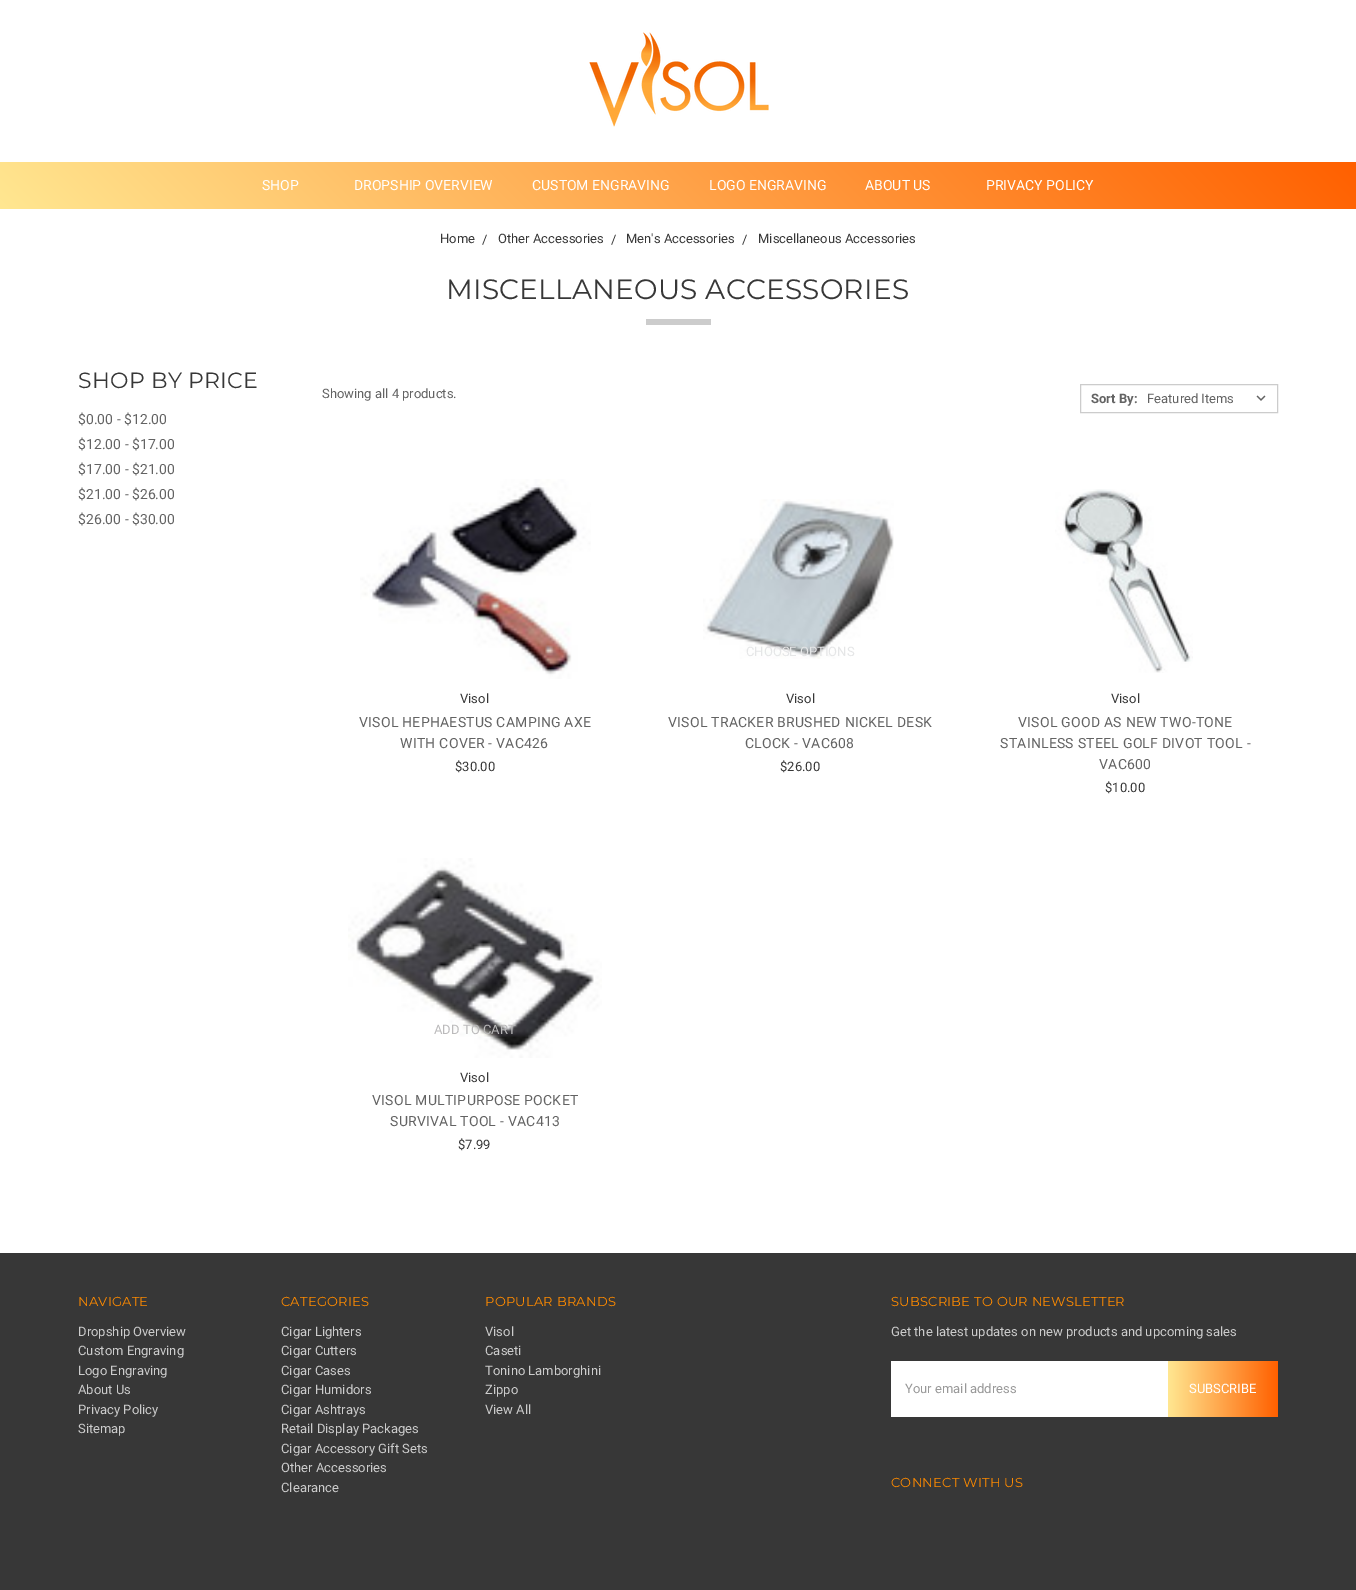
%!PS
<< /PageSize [1356 1590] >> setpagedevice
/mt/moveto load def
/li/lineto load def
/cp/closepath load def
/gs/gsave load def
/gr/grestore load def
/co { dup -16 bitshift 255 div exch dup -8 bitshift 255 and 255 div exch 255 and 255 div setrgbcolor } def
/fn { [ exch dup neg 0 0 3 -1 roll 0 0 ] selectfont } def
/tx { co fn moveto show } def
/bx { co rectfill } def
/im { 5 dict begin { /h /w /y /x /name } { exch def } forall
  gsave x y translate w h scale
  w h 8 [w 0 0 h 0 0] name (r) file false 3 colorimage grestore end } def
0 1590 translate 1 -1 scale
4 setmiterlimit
0 0 1356 1590 16#FFFFFF bx
(media/1.raw) 589 32 180 95 im
gs 0 162 mt 1356 162 li 1356 209 li 0 209 li cp clip newpath
<< /ShadingType 2 /ColorSpace /DeviceRGB /Coords [327 536 1029 -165] /Extend [true true] /Function << /FunctionType 2 /Domain [0 1] /C0 [1 .906 .569] /C1 [1 .376 0] /N 1 >> >> shfill gr
646 319 65 6 16#CCCCCC bx
1080.5 384.5 197 28 rectstroke
(media/2.raw) 1256 395 10 6 im
(media/3.raw) 360 479 231 200 im
(media/4.raw) 703 499 191 160 im
(media/5.raw) 1055 489 138 184 im
(media/6.raw) 348 858 254 200 im
0 1253 1356 337 16#373737 bx
891 1361 277 56 16#FFFFFF bx
gs 1168 1361 mt 1278 1361 li 1278 1417 li 1168 1417 li cp clip newpath
<< /ShadingType 2 /ColorSpace /DeviceRGB /Coords [1168 1389 1278 1389] /Extend [true true] /Function << /FunctionType 2 /Domain [0 1] /C0 [1 .906 .569] /C1 [1 .376 0] /N 1 >> >> shfill gr
(SHOP) 262 190 /Roboto-Regular 14 16#FFFFFF tx
(DROPSHIP OVERVIEW) 354 190 /Roboto-Regular 14 16#FFFFFF tx
(CUSTOM ENGRAVING) 532 190 /Roboto-Regular 14 16#FFFFFF tx
(LOGO ENGRAVING) 709 190 /Roboto-Regular 14 16#FFFFFF tx
(ABOUT US) 865 190 /Roboto-Regular 14 16#FFFFFF tx
(PRIVACY POLICY) 986 190 /Roboto-Regular 14 16#FFFFFF tx
(Home) 440 243 /Roboto-Regular 13 16#373737 tx
(/) 482 244 /Roboto-Regular 13 16#373737 tx
(Other Accessories) 498 243 /Roboto-Regular 13 16#373737 tx
(/) 611 244 /Roboto-Regular 13 16#373737 tx
(Men's Accessories) 626 243 /Roboto-Regular 13 16#373737 tx
(/) 742 244 /Roboto-Regular 13 16#373737 tx
(Miscellaneous Accessories) 758 243 /Roboto-Regular 13 16#373737 tx
/Montserrat-Thin 28 fn
446 299 mt .25 0 (MISCELLANEOUS ACCESSORIES) ashow
/Montserrat-Thin 22 fn
78 388 mt .25 0 (SHOP BY PRICE) ashow
($0.00 - $12.00) 78 424 /Roboto-Regular 14 16#636363 tx
($12.00 - $17.00) 78 449 /Roboto-Regular 14 16#636363 tx
($17.00 - $21.00) 78 474 /Roboto-Regular 14 16#636363 tx
($21.00 - $26.00) 78 499 /Roboto-Regular 14 16#636363 tx
($26.00 - $30.00) 78 524 /Roboto-Regular 14 16#636363 tx
(Showing all 4 products.) 322 398 /Roboto-Regular 13 16#636363 tx
(Sort By:) 1091 403 /Roboto-Bold 13 16#636363 tx
(Featured Items) 1147 403 /Roboto-Regular 13 16#636363 tx
(Visol) 460 703 /Roboto-Regular 13 16#373737 tx
/Roboto-Regular 14 fn
16#636363 co
359 727 mt .25 0 (VISOL HEPHAESTUS CAMPING AXE) ashow
400 748 mt .25 0 (WITH COVER - VAC426) ashow
($30.00) 455 771 /Roboto-Regular 13 16#373737 tx
(CHOOSE OPTIONS) 746 656 /Roboto-Regular 13 16#E5E6E7 tx
(Visol) 786 703 /Roboto-Regular 13 16#373737 tx
/Roboto-Regular 14 fn
16#636363 co
668 727 mt .25 0 (VISOL TRACKER BRUSHED NICKEL DESK) ashow
745 748 mt .25 0 (CLOCK - VAC608) ashow
($26.00) 780 771 /Roboto-Regular 13 16#373737 tx
(Visol) 1111 703 /Roboto-Regular 13 16#373737 tx
/Roboto-Regular 14 fn
16#636363 co
1018 727 mt .25 0 (VISOL GOOD AS NEW TWO-TONE) ashow
1000 748 mt .25 0 (STAINLESS STEEL GOLF DIVOT TOOL -) ashow
1099 769 mt .25 0 (VAC600) ashow
($10.00) 1105 792 /Roboto-Regular 13 16#373737 tx
(ADD TO CART) 434 1034 /Roboto-Regular 13 16#BBBABB tx
(Visol) 460 1082 /Roboto-Regular 13 16#373737 tx
/Roboto-Regular 14 fn
16#636363 co
372 1105 mt .25 0 (VISOL MULTIPURPOSE POCKET) ashow
390 1126 mt .25 0 (SURVIVAL TOOL - VAC413) ashow
($7.99) 458 1149 /Roboto-Regular 13 16#373737 tx
/Montserrat-Thin 13 fn
16#FF8B00 co
78 1306 mt .25 0 (NAVIGATE) ashow
(Dropship Overview) 78 1336 /Roboto-Regular 13 16#CCCCCC tx
(Custom Engraving) 78 1355 /Roboto-Regular 13 16#CCCCCC tx
(Logo Engraving) 78 1375 /Roboto-Regular 13 16#CCCCCC tx
(About Us) 78 1394 /Roboto-Regular 13 16#CCCCCC tx
(Privacy Policy) 78 1414 /Roboto-Regular 13 16#CCCCCC tx
(Sitemap) 78 1433 /Roboto-Regular 13 16#CCCCCC tx
/Montserrat-Thin 13 fn
16#FF8B00 co
281 1306 mt .25 0 (CATEGORIES) ashow
(Cigar Lighters) 281 1336 /Roboto-Regular 13 16#CCCCCC tx
(Cigar Cutters) 281 1355 /Roboto-Regular 13 16#CCCCCC tx
(Cigar Cases) 281 1375 /Roboto-Regular 13 16#CCCCCC tx
(Cigar Humidors) 281 1394 /Roboto-Regular 13 16#CCCCCC tx
(Cigar Ashtrays) 281 1414 /Roboto-Regular 13 16#CCCCCC tx
(Retail Display Packages) 281 1433 /Roboto-Regular 13 16#CCCCCC tx
(Cigar Accessory Gift Sets) 281 1453 /Roboto-Regular 13 16#CCCCCC tx
(Other Accessories) 281 1472 /Roboto-Regular 13 16#CCCCCC tx
(Clearance) 281 1492 /Roboto-Regular 13 16#CCCCCC tx
/Montserrat-Thin 13 fn
16#FF8B00 co
485 1306 mt .25 0 (POPULAR BRANDS) ashow
(Visol) 485 1336 /Roboto-Regular 13 16#CCCCCC tx
(Caseti) 485 1355 /Roboto-Regular 13 16#CCCCCC tx
(Tonino Lamborghini) 485 1375 /Roboto-Regular 13 16#CCCCCC tx
(Zippo) 485 1394 /Roboto-Regular 13 16#CCCCCC tx
(View All) 485 1414 /Roboto-Regular 13 16#CCCCCC tx
/Montserrat-Thin 13 fn
16#FF8B00 co
891 1306 mt .25 0 (SUBSCRIBE TO OUR NEWSLETTER) ashow
(Get the latest updates on new products and upcoming sales) 891 1336 /Roboto-Regular 13 16#CCCCCC tx
(Your email address) 905 1393 /Roboto-Regular 13 16#999999 tx
(SUBSCRIBE) 1189 1393 /Roboto-Regular 13 16#FFFFFF tx
/Montserrat-Thin 13 fn
16#FF8B00 co
891 1487 mt .25 0 (CONNECT WITH US) ashow
showpage
